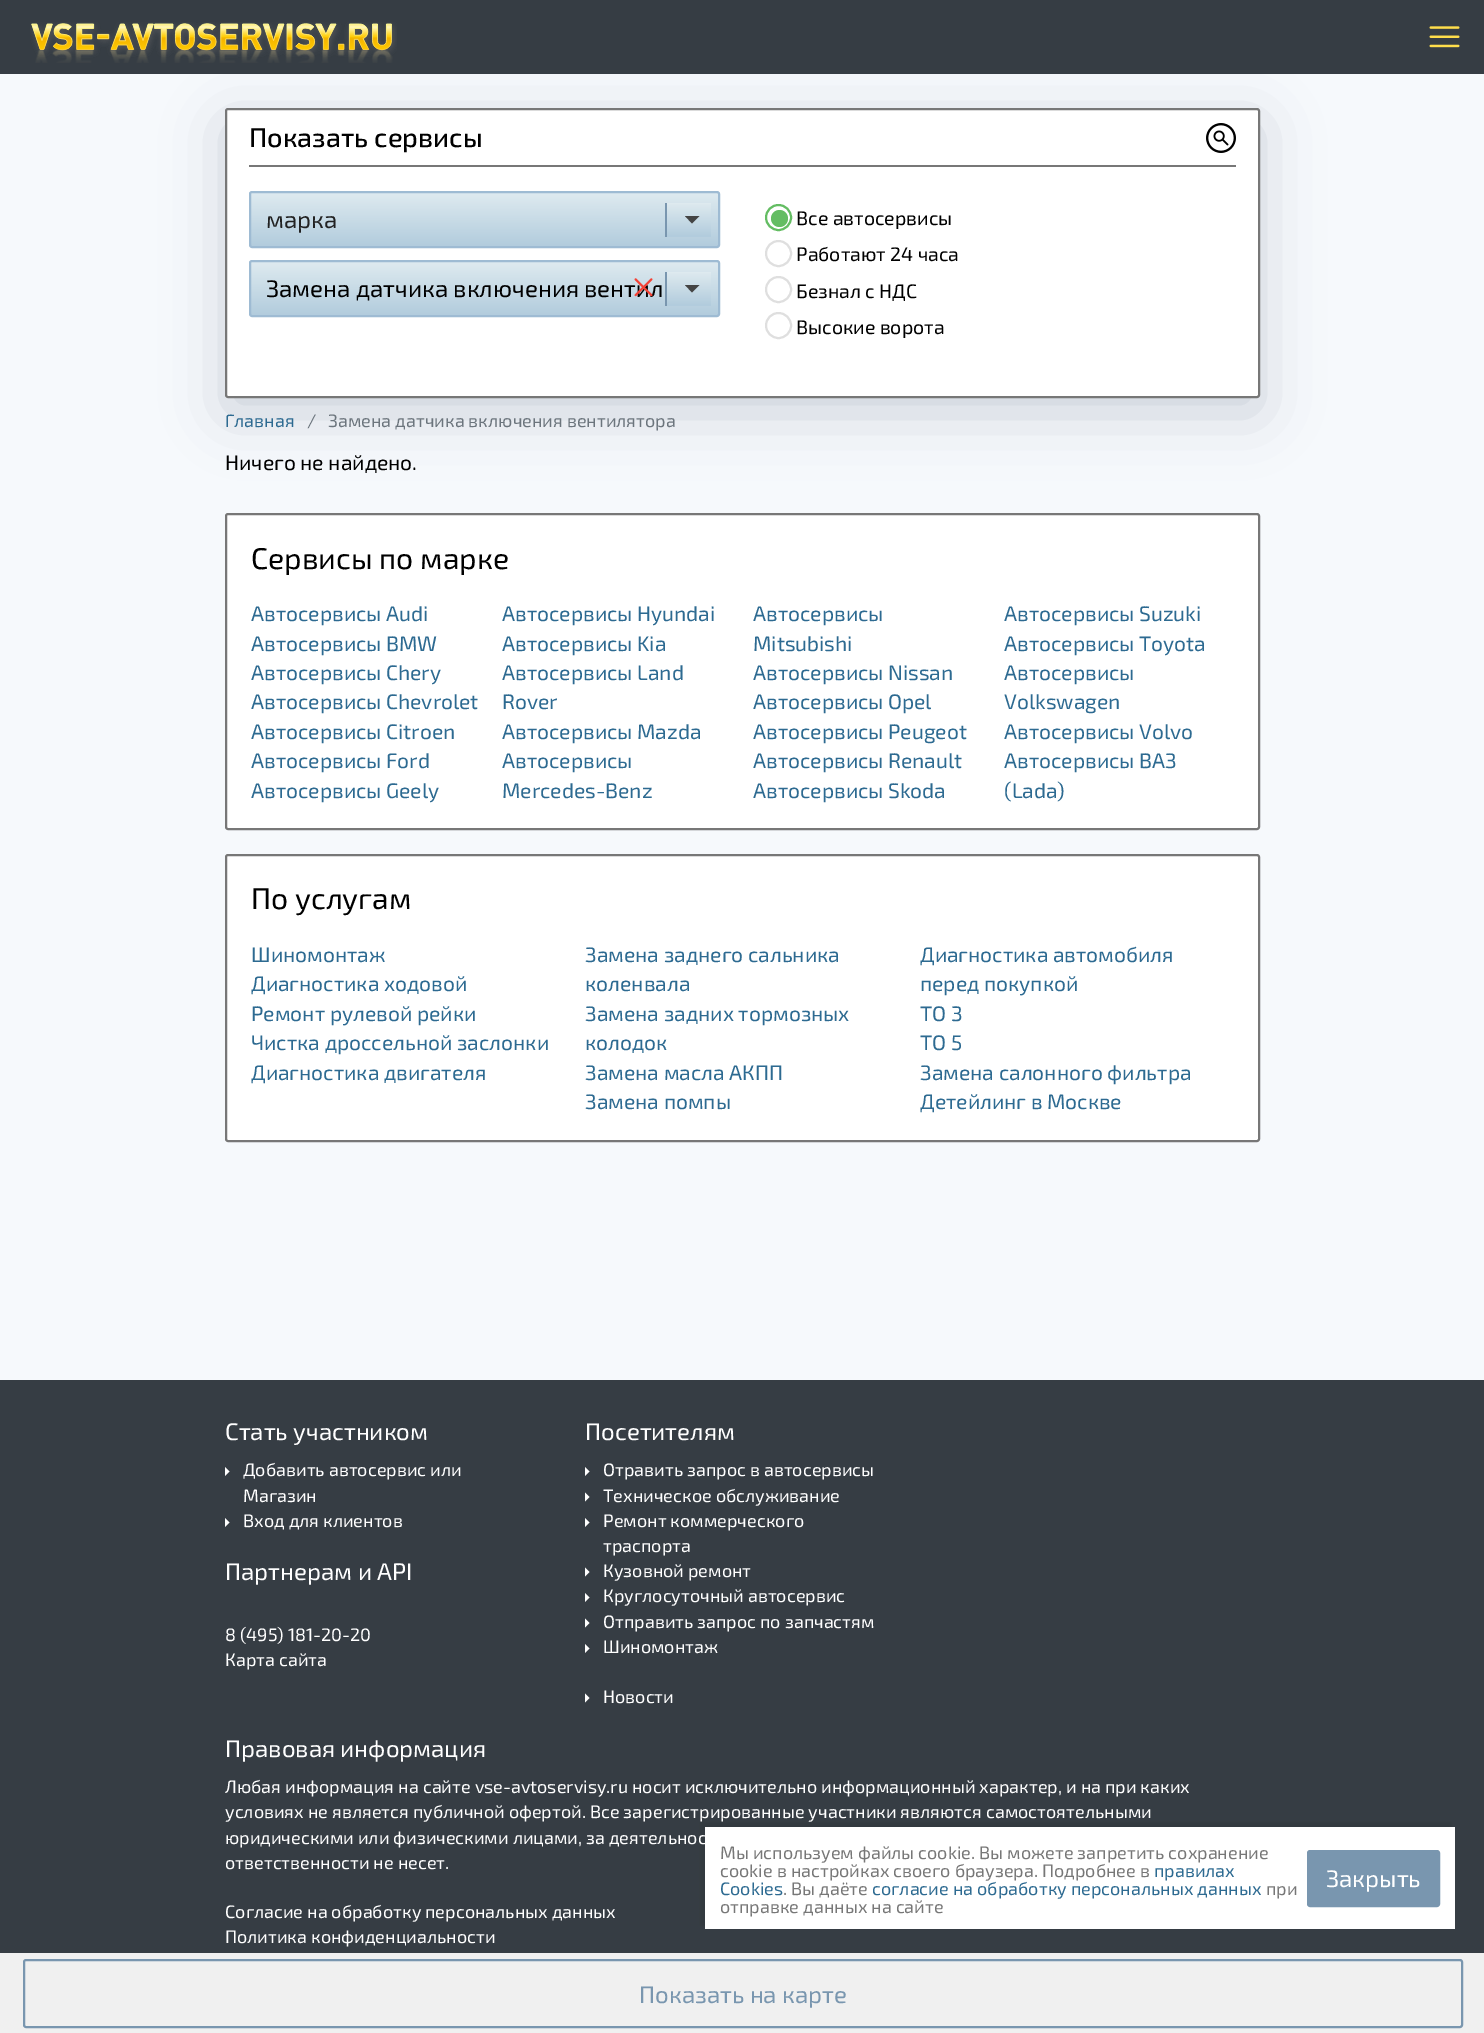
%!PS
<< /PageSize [1484 2033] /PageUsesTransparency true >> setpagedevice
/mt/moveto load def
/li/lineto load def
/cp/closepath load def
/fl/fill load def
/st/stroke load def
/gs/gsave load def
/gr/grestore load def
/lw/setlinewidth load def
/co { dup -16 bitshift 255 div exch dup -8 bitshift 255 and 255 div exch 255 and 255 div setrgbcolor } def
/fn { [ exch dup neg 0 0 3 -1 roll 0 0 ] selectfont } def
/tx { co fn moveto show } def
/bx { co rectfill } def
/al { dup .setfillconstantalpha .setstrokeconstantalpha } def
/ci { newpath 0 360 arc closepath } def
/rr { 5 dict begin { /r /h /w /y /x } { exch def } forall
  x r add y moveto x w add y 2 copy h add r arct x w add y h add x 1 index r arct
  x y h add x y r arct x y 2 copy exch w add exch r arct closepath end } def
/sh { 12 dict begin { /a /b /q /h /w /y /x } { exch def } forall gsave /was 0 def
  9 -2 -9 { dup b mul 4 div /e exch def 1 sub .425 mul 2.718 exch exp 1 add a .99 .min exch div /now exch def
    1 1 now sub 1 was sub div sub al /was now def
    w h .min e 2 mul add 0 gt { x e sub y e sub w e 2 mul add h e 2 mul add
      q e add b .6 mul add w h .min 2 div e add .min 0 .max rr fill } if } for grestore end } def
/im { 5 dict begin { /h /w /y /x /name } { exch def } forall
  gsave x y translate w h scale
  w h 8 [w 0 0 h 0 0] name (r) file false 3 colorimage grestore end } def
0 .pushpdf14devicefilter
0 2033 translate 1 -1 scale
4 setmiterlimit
0 0 1484 2033 16#F6F9FC bx
16#687488 co
225 123 1035 290 3 30 .3 sh
0 0 1484 74 16#363D44 bx
(media/1.raw) 30 22 367 41 im
(media/2.raw) 1429 26 31 22 im
16#FFFFFF co
226 109 1033 288 2 rr gs fl gr
16#777777 co
2 lw
st
249 165 987 2 16#777777 bx
(media/3.raw) 1206 123 30 30 im
gs
249 191 471 57 3 rr clip newpath
gs 249 192 mt 720 192 li 720 246 li 249 246 li cp clip newpath
<< /ShadingType 2 /ColorSpace /DeviceRGB /Coords [485 246 485 192] /Extend [true true] /Function << /FunctionType 2 /Domain [0 1] /C0 [.698 .8 .867] /C1 [.875 .922 .941] /N 1 >> >> shfill gr
gr
16#9EBBD3 co
250 192 469 55 2 rr st
gs 667 203 mt 711 203 li 711 237 li 667 237 li cp clip newpath
<< /ShadingType 2 /ColorSpace /DeviceRGB /Coords [689 236 689 202] /Extend [true true] /Function << /FunctionType 2 /Domain [0 1] /C0 [.698 .8 .867] /C1 [.875 .922 .941] /N 1 >> >> shfill gr
665 203 2 34 16#7996AF bx
16#444444 co
685 216 mt 692 223.5 li 699.5 216 li cp fl
gs
249 260 471 57 3 rr clip newpath
gs 249 261 mt 720 261 li 720 315 li 249 315 li cp clip newpath
<< /ShadingType 2 /ColorSpace /DeviceRGB /Coords [485 315 485 261] /Extend [true true] /Function << /FunctionType 2 /Domain [0 1] /C0 [.698 .8 .867] /C1 [.875 .922 .941] /N 1 >> >> shfill gr
gr
16#9EBBD3 co
250 261 469 55 2 rr st
gs 667 272 mt 711 272 li 711 306 li 667 306 li cp clip newpath
<< /ShadingType 2 /ColorSpace /DeviceRGB /Coords [689 305 689 271] /Extend [true true] /Function << /FunctionType 2 /Domain [0 1] /C0 [.698 .8 .867] /C1 [.875 .922 .941] /N 1 >> >> shfill gr
665 272 2 34 16#7996AF bx
16#444444 co
685 285 mt 692 292.5 li 699.5 285 li cp fl
16#64BD63 co
778.5 217.5 12.5 ci st
779.5 218.5 8.5 ci fl
16#DFDFDF co
778.5 253.5 12.5 ci st
778.5 289.5 12.5 ci st
778.5 325.5 12.5 ci st
16#FFFFFF co
226 514 1033 315 2 rr gs fl gr
16#777777 co
st
16#FFFFFF co
226 855 1033 286 2 rr gs fl gr
16#777777 co
st
0 1953 1484 80 16#F0F0F0 bx
16#7996AF co
24 1960 1438 67 2 rr st
0 1380 1484 573 16#363D44 bx
16#FFFFFF co
225 1476 mt 225 1467 li 229.5 1471.5 li cp fl
225 1527 mt 225 1518 li 229.5 1522.5 li cp fl
585 1476 mt 585 1467 li 589.5 1471.5 li cp fl
585 1501.5 mt 585 1492.5 li 589.5 1497 li cp fl
585 1527 mt 585 1518 li 589.5 1522.5 li cp fl
585 1576.5 mt 585 1567.5 li 589.5 1572 li cp fl
585 1602 mt 585 1593 li 589.5 1597.5 li cp fl
585 1627.5 mt 585 1618.5 li 589.5 1623 li cp fl
585 1653 mt 585 1644 li 589.5 1648.5 li cp fl
585 1702.5 mt 585 1693.5 li 589.5 1698 li cp fl
16#000000 co
701 1823 750 102 0 2 .1 sh
705 1827 750 102 16#FFFFFF bx
16#7996AF co
1308 1851 131 55 2 rr gs fl gr
st
(Показать сервисы) 249 147 /Exo2-Medium 27 16#000000 tx
(марка) 266 228 /Exo2-Regular 24 16#222222 tx
(Замена датчика включения вентил) 266 297 /Exo2-Regular 24 16#000000 tx
(media/4.raw) 634 278 19 19 im
(Все автосервисы) 796 225 /Exo2-Regular 19.5 16#000000 tx
(Работают 24 часа) 796 261 /Exo2-Regular 19.5 16#000000 tx
(Безнал с НДС) 796 298 /Exo2-Regular 19.5 16#000000 tx
(Высокие ворота) 796 334 /Exo2-Regular 19.5 16#000000 tx
(Главная) 225 427 /Exo2-Regular 18 16#2D6A91 tx
(/) 307 427 /Exo2-Regular 18 16#6C757D tx
(Замена датчика включения вентилятора) 328 427 /Exo2-Regular 18 16#6C757D tx
(Ничего не найдено.) 225 470 /Exo2-Regular 21 16#000000 tx
(Сервисы по марке) 251 569 /Exo2-Regular 30 16#000000 tx
(Автосервисы Audi) 251 621 /Exo2-Regular 21 16#2D6A91 tx
(Автосервисы Hyundai) 502 621 /Exo2-Regular 21 16#2D6A91 tx
(Автосервисы) 753 621 /Exo2-Regular 21 16#2D6A91 tx
(Mitsubishi) 753 651 /Exo2-Regular 21 16#2D6A91 tx
(Автосервисы Suzuki) 1004 621 /Exo2-Regular 21 16#2D6A91 tx
(Автосервисы BMW) 251 651 /Exo2-Regular 21 16#2D6A91 tx
(Автосервисы Kia) 502 651 /Exo2-Regular 21 16#2D6A91 tx
(Автосервисы Toyota) 1004 651 /Exo2-Regular 21 16#2D6A91 tx
(Автосервисы Chery) 251 680 /Exo2-Regular 21 16#2D6A91 tx
(Автосервисы Land) 502 680 /Exo2-Regular 21 16#2D6A91 tx
(Rover) 502 709 /Exo2-Regular 21 16#2D6A91 tx
(Автосервисы Nissan) 753 680 /Exo2-Regular 21 16#2D6A91 tx
(Автосервисы) 1004 680 /Exo2-Regular 21 16#2D6A91 tx
(Volkswagen) 1004 709 /Exo2-Regular 21 16#2D6A91 tx
(Автосервисы Chevrolet) 251 709 /Exo2-Regular 21 16#2D6A91 tx
(Автосервисы Opel) 753 709 /Exo2-Regular 21 16#2D6A91 tx
(Автосервисы Citroen) 251 739 /Exo2-Regular 21 16#2D6A91 tx
(Автосервисы Mazda) 502 739 /Exo2-Regular 21 16#2D6A91 tx
(Автосервисы Peugeot) 753 739 /Exo2-Regular 21 16#2D6A91 tx
(Автосервисы Volvo) 1004 739 /Exo2-Regular 21 16#2D6A91 tx
(Автосервисы Ford) 251 768 /Exo2-Regular 21 16#2D6A91 tx
(Автосервисы) 502 768 /Exo2-Regular 21 16#2D6A91 tx
(Mercedes-Benz) 502 798 /Exo2-Regular 21 16#2D6A91 tx
(Автосервисы Renault) 753 768 /Exo2-Regular 21 16#2D6A91 tx
(Автосервисы ВАЗ) 1004 768 /Exo2-Regular 21 16#2D6A91 tx
(\(Lada\)) 1004 798 /Exo2-Regular 21 16#2D6A91 tx
(Автосервисы Geely) 251 798 /Exo2-Regular 21 16#2D6A91 tx
(Автосервисы Skoda) 753 798 /Exo2-Regular 21 16#2D6A91 tx
(По услугам) 251 909 /Exo2-Regular 30 16#000000 tx
(Шиномонтаж) 251 962 /Exo2-Regular 21 16#2D6A91 tx
(Замена заднего сальника) 585 962 /Exo2-Regular 21 16#2D6A91 tx
(коленвала) 585 991 /Exo2-Regular 21 16#2D6A91 tx
(Диагностика автомобиля) 920 962 /Exo2-Regular 21 16#2D6A91 tx
(перед покупкой) 920 991 /Exo2-Regular 21 16#2D6A91 tx
(Диагностика ходовой) 251 991 /Exo2-Regular 21 16#2D6A91 tx
(Ремонт рулевой рейки) 251 1021 /Exo2-Regular 21 16#2D6A91 tx
(Замена задних тормозных) 585 1021 /Exo2-Regular 21 16#2D6A91 tx
(колодок) 585 1050 /Exo2-Regular 21 16#2D6A91 tx
(ТО 3) 920 1021 /Exo2-Regular 21 16#2D6A91 tx
(Чистка дроссельной заслонки) 251 1050 /Exo2-Regular 21 16#2D6A91 tx
(ТО 5) 920 1050 /Exo2-Regular 21 16#2D6A91 tx
(Диагностика двигателя) 251 1080 /Exo2-Regular 21 16#2D6A91 tx
(Замена масла АКПП) 585 1080 /Exo2-Regular 21 16#2D6A91 tx
(Замена салонного фильтра) 920 1080 /Exo2-Regular 21 16#2D6A91 tx
(Замена помпы) 585 1109 /Exo2-Regular 21 16#2D6A91 tx
(Детейлинг в Москве) 920 1109 /Exo2-Regular 21 16#2D6A91 tx
(Показать на карте) 639 2003 /Exo2-Regular 24 16#7996AF tx
(Стать участником) 225 1440 /Exo2-Regular 24 16#FFFFFF tx
(Добавить автосервис или) 243 1476 /Exo2-Regular 18 16#FFFFFF tx
(Магазин) 243 1502 /Exo2-Regular 18 16#FFFFFF tx
(Вход для клиентов) 243 1527 /Exo2-Regular 18 16#FFFFFF tx
(Партнерам и API) 225 1580 /Exo2-Regular 24 16#FFFFFF tx
(8 \(495\) 181-20-20) 225 1641 /Exo2-Regular 18 16#FFFFFF tx
(Карта сайта) 225 1666 /Exo2-Regular 18 16#FFFFFF tx
(Посетителям) 585 1440 /Exo2-Regular 24 16#FFFFFF tx
(Отравить запрос в автосервисы) 603 1476 /Exo2-Regular 18 16#FFFFFF tx
(Техническое обслуживание) 603 1502 /Exo2-Regular 18 16#FFFFFF tx
(Ремонт коммерческого) 603 1527 /Exo2-Regular 18 16#FFFFFF tx
(траспорта) 603 1552 /Exo2-Regular 18 16#FFFFFF tx
(Кузовной ремонт) 603 1577 /Exo2-Regular 18 16#FFFFFF tx
(Круглосуточный автосервис) 603 1602 /Exo2-Regular 18 16#FFFFFF tx
(Отправить запрос по запчастям) 603 1628 /Exo2-Regular 18 16#FFFFFF tx
(Шиномонтаж) 603 1653 /Exo2-Regular 18 16#FFFFFF tx
(Новости) 603 1703 /Exo2-Regular 18 16#FFFFFF tx
(Правовая информация) 225 1757 /Exo2-Regular 24 16#FFFFFF tx
(Любая информация на сайте vse-avtoservisy.ru носит исключительно информационный характер, и на при каких) 225 1793 /Exo2-Regular 18 16#FFFFFF tx
(условиях не является публичной офертой. Все зарегистрированные участники являются самостоятельными) 225 1818 /Exo2-Regular 18 16#FFFFFF tx
(юридическими или физическими лицами, за деятельнос) 225 1844 /Exo2-Regular 18 16#FFFFFF tx
(ответственности не несет.) 225 1869 /Exo2-Regular 18 16#FFFFFF tx
(Согласие на обработку персональных данных) 225 1918 /Exo2-Regular 18 16#FFFFFF tx
(Политика конфиденциальности) 225 1943 /Exo2-Regular 18 16#FFFFFF tx
(Мы используем файлы cookie. Вы можете запретить сохранение) 720 1859 /Exo2-Regular 18 16#777777 tx
(cookie в настройках своего браузера. Подробнее в) 720 1877 /Exo2-Regular 18 16#777777 tx
(правилах) 1154 1877 /Exo2-Regular 18 16#2D6A91 tx
(Cookies) 720 1895 /Exo2-Regular 18 16#2D6A91 tx
(. Вы даёте) 783 1895 /Exo2-Regular 18 16#777777 tx
(согласие на обработку персональных данных) 872 1895 /Exo2-Regular 18 16#2D6A91 tx
(при) 1266 1895 /Exo2-Regular 18 16#777777 tx
(отправке данных на сайте) 720 1913 /Exo2-Regular 18 16#777777 tx
(Закрыть) 1326 1887 /Exo2-Regular 24 16#FFFFFF tx
.poppdf14devicefilter showpage
